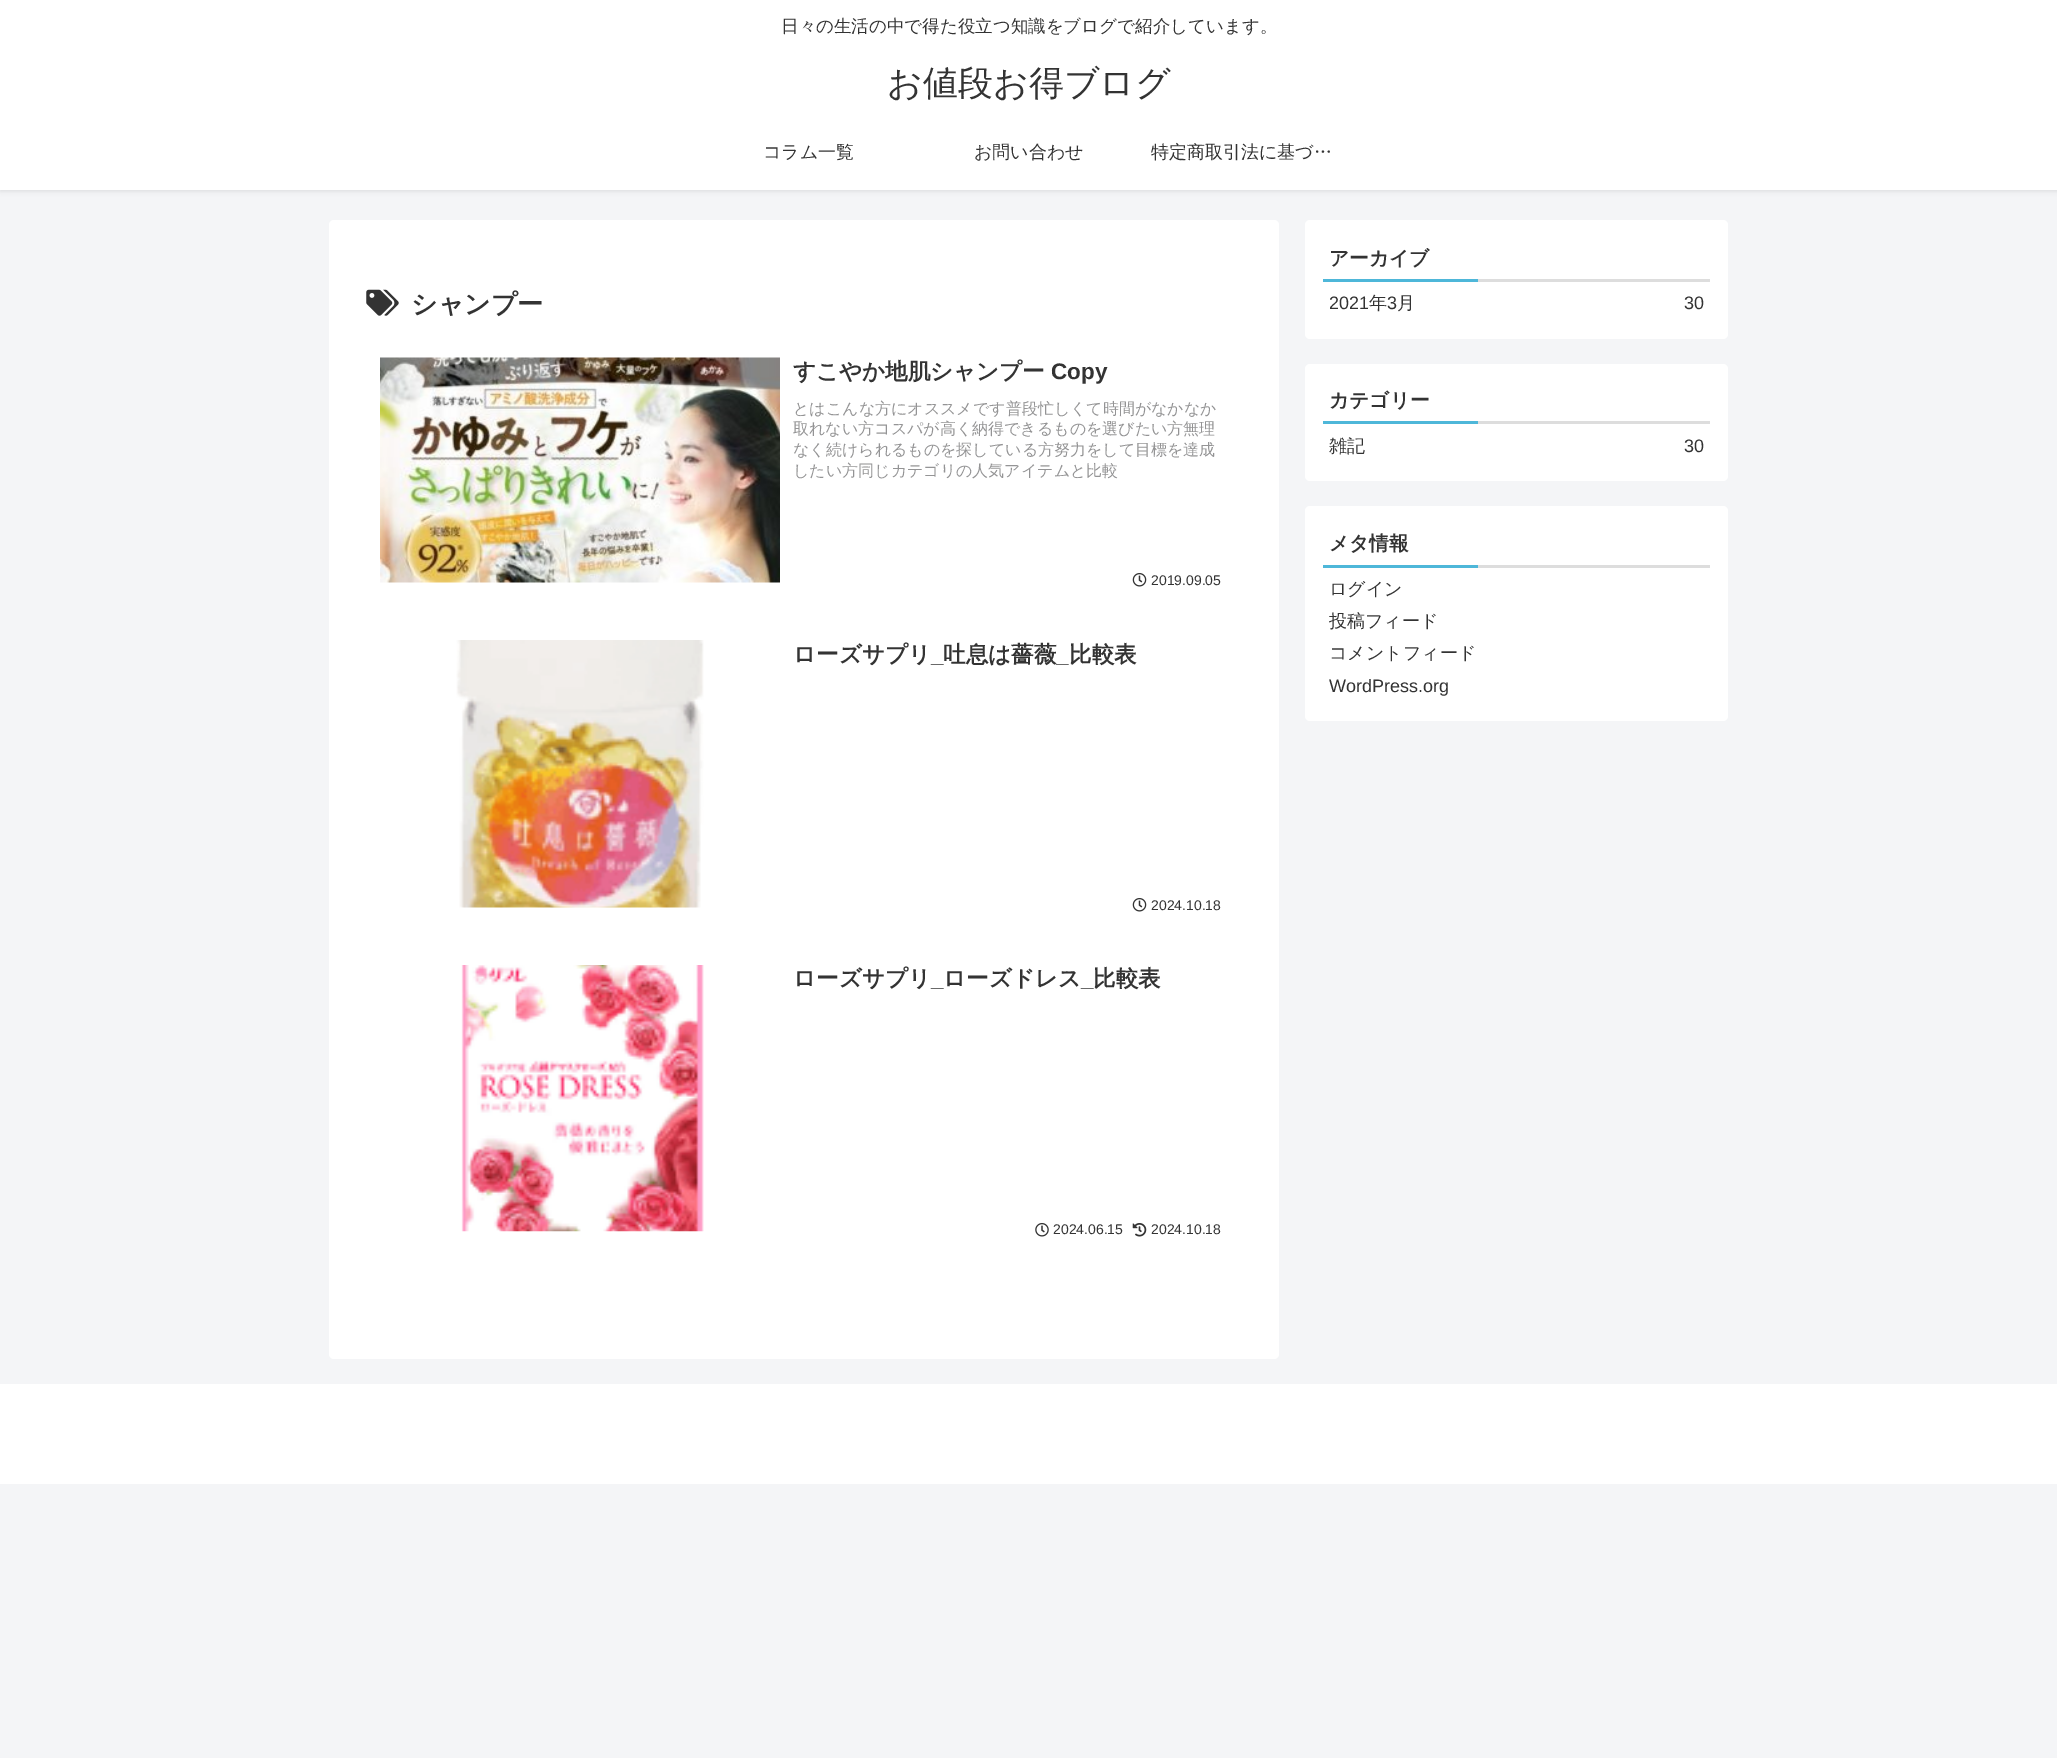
%!PS
<< /PageSize [2057 1758] /PageUsesTransparency true >> setpagedevice
/fl/fill load def
/co { dup -16 bitshift 255 div exch dup -8 bitshift 255 and 255 div exch 255 and 255 div setrgbcolor } def
/fn { [ exch dup neg 0 0 3 -1 roll 0 0 ] selectfont } def
/tx { co fn moveto show } def
/bx { co rectfill } def
/al { dup .setfillconstantalpha .setstrokeconstantalpha } def
/rr { 5 dict begin { /r /h /w /y /x } { exch def } forall
  x r add y moveto x w add y 2 copy h add r arct x w add y h add x 1 index r arct
  x y h add x y r arct x y 2 copy exch w add exch r arct closepath end } def
/sh { 12 dict begin { /a /b /q /h /w /y /x } { exch def } forall gsave /was 0 def
  9 -2 -9 { dup b mul 4 div /e exch def 1 sub .425 mul 2.718 exch exp 1 add a .99 .min exch div /now exch def
    1 1 now sub 1 was sub div sub al /was now def
    w h .min e 2 mul add 0 gt { x e sub y e sub w e 2 mul add h e 2 mul add
      q e add b .6 mul add w h .min 2 div e add .min 0 .max rr fill } if } for grestore end } def
/im { 5 dict begin { /h /w /y /x /name } { exch def } forall
  gsave x y translate w h scale
  w h 8 [w 0 0 h 0 0] name (r) file false 3 colorimage grestore end } def
0 .pushpdf14devicefilter
0 1758 translate 1 -1 scale
4 setmiterlimit
0 0 2057 1758 16#F4F5F7 bx
16#000000 co
0 1 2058 190 0 2.5 .1 sh
0 0 2057 190 16#FFFFFF bx
329 220 950 1139 5 rr fl
(media/1.raw) 366 289 33 27 im
(media/2.raw) 380 357 400 226 im
(media/3.raw) 1132 573 15 14 im
(media/4.raw) 456 640 248 268 im
(media/3.raw) 1132 898 15 14 im
(media/5.raw) 461 965 243 267 im
(media/6.raw) 1035 1223 14 14 im
(media/7.raw) 1132 1223 15 14 im
1305 220 423 119 5 rr fl
1323 279 155 3 16#4EB7D9 bx
1478 279 232 3 16#DDDDDD bx
16#FFFFFF co
1305 364 423 117 5 rr fl
1323 421 155 3 16#4EB7D9 bx
1478 421 232 3 16#DDDDDD bx
16#FFFFFF co
1305 506 423 215 5 rr fl
1323 565 155 3 16#4EB7D9 bx
1478 565 232 3 16#DDDDDD bx
0 1384 2057 100 16#FFFFFF bx
(日々の生活の中で得た役立つ知識をブログで紹介しています。) 781 32 /WenQuanYiZenHei-Medium 17.5 16#333333 tx
(お値段お得ブログ) 887 95 /WenQuanYiZenHei-Medium 35 16#333333 tx
(コラム一覧) 763 158 /WenQuanYiZenHei-Medium 18 16#333333 tx
(お問い合わせ) 974 158 /WenQuanYiZenHei-Medium 18 16#333333 tx
(特定商取引法に基づ…) 1151 158 /WenQuanYiZenHei-Medium 18 16#333333 tx
(シャンプー) 411 313 /WenQuanYiZenHei-Bold 26 16#333333 tx
(すこやか地肌シャンプー) 793 379 /WenQuanYiZenHei-Bold 22.5 16#333333 tx
(Copy) 1051 379 /LiberationSans-Bold 22.5 16#333333 tx
(とはこんな方にオススメです普段忙しくて時間がなかなか) 793 414 /WenQuanYiZenHei-Medium 16 16#949495 tx
(取れない方コスパが高く納得できるものを選びたい方無理) 793 434 /WenQuanYiZenHei-Medium 16 16#949495 tx
(なく続けられるものを探している方努力をして目標を達成) 793 455 /WenQuanYiZenHei-Medium 16 16#949495 tx
(したい方同じカテゴリの人気アイテムと比較) 793 476 /WenQuanYiZenHei-Medium 16 16#949495 tx
(2019.09.05) 1151 585 /LiberationSans-Regular 14 16#333333 tx
(ローズサプリ) 793 662 /WenQuanYiZenHei-Bold 22.5 16#333333 tx
(_) 931 662 /LiberationSans-Bold 22.5 16#333333 tx
(吐息は薔薇) 943 662 /WenQuanYiZenHei-Bold 22.5 16#333333 tx
(_) 1056 662 /LiberationSans-Bold 22.5 16#333333 tx
(比較表) 1069 662 /WenQuanYiZenHei-Bold 22.5 16#333333 tx
(2024.10.18) 1151 910 /LiberationSans-Regular 14 16#333333 tx
(ローズサプリ) 793 986 /WenQuanYiZenHei-Bold 22.5 16#333333 tx
(_) 931 986 /LiberationSans-Bold 22.5 16#333333 tx
(ローズドレス) 943 986 /WenQuanYiZenHei-Bold 22.5 16#333333 tx
(_) 1081 986 /LiberationSans-Bold 22.5 16#333333 tx
(比較表) 1093 986 /WenQuanYiZenHei-Bold 22.5 16#333333 tx
(2024.06.15) 1053 1234 /LiberationSans-Regular 14 16#333333 tx
(2024.10.18) 1151 1234 /LiberationSans-Regular 14 16#333333 tx
(アーカイブ) 1329 265 /WenQuanYiZenHei-Bold 19.75 16#333333 tx
(2021) 1329 309 /LiberationSans-Regular 18 16#333333 tx
(年) 1369 309 /WenQuanYiZenHei-Medium 18 16#333333 tx
(3) 1387 309 /LiberationSans-Regular 18 16#333333 tx
(月) 1397 309 /WenQuanYiZenHei-Medium 18 16#333333 tx
(30) 1684 309 /LiberationSans-Regular 18 16#333333 tx
(カテゴリー) 1329 407 /WenQuanYiZenHei-Bold 19.75 16#333333 tx
(雑記) 1329 452 /WenQuanYiZenHei-Medium 18 16#333333 tx
(30) 1684 452 /LiberationSans-Regular 18 16#333333 tx
(メタ情報) 1329 550 /WenQuanYiZenHei-Bold 19.75 16#333333 tx
(ログイン) 1329 595 /WenQuanYiZenHei-Medium 18 16#333333 tx
(投稿フィード) 1329 627 /WenQuanYiZenHei-Medium 18 16#333333 tx
(コメントフィード) 1329 659 /WenQuanYiZenHei-Medium 18 16#333333 tx
(WordPress.org) 1329 692 /LiberationSans-Regular 18 16#333333 tx
.poppdf14devicefilter showpage
